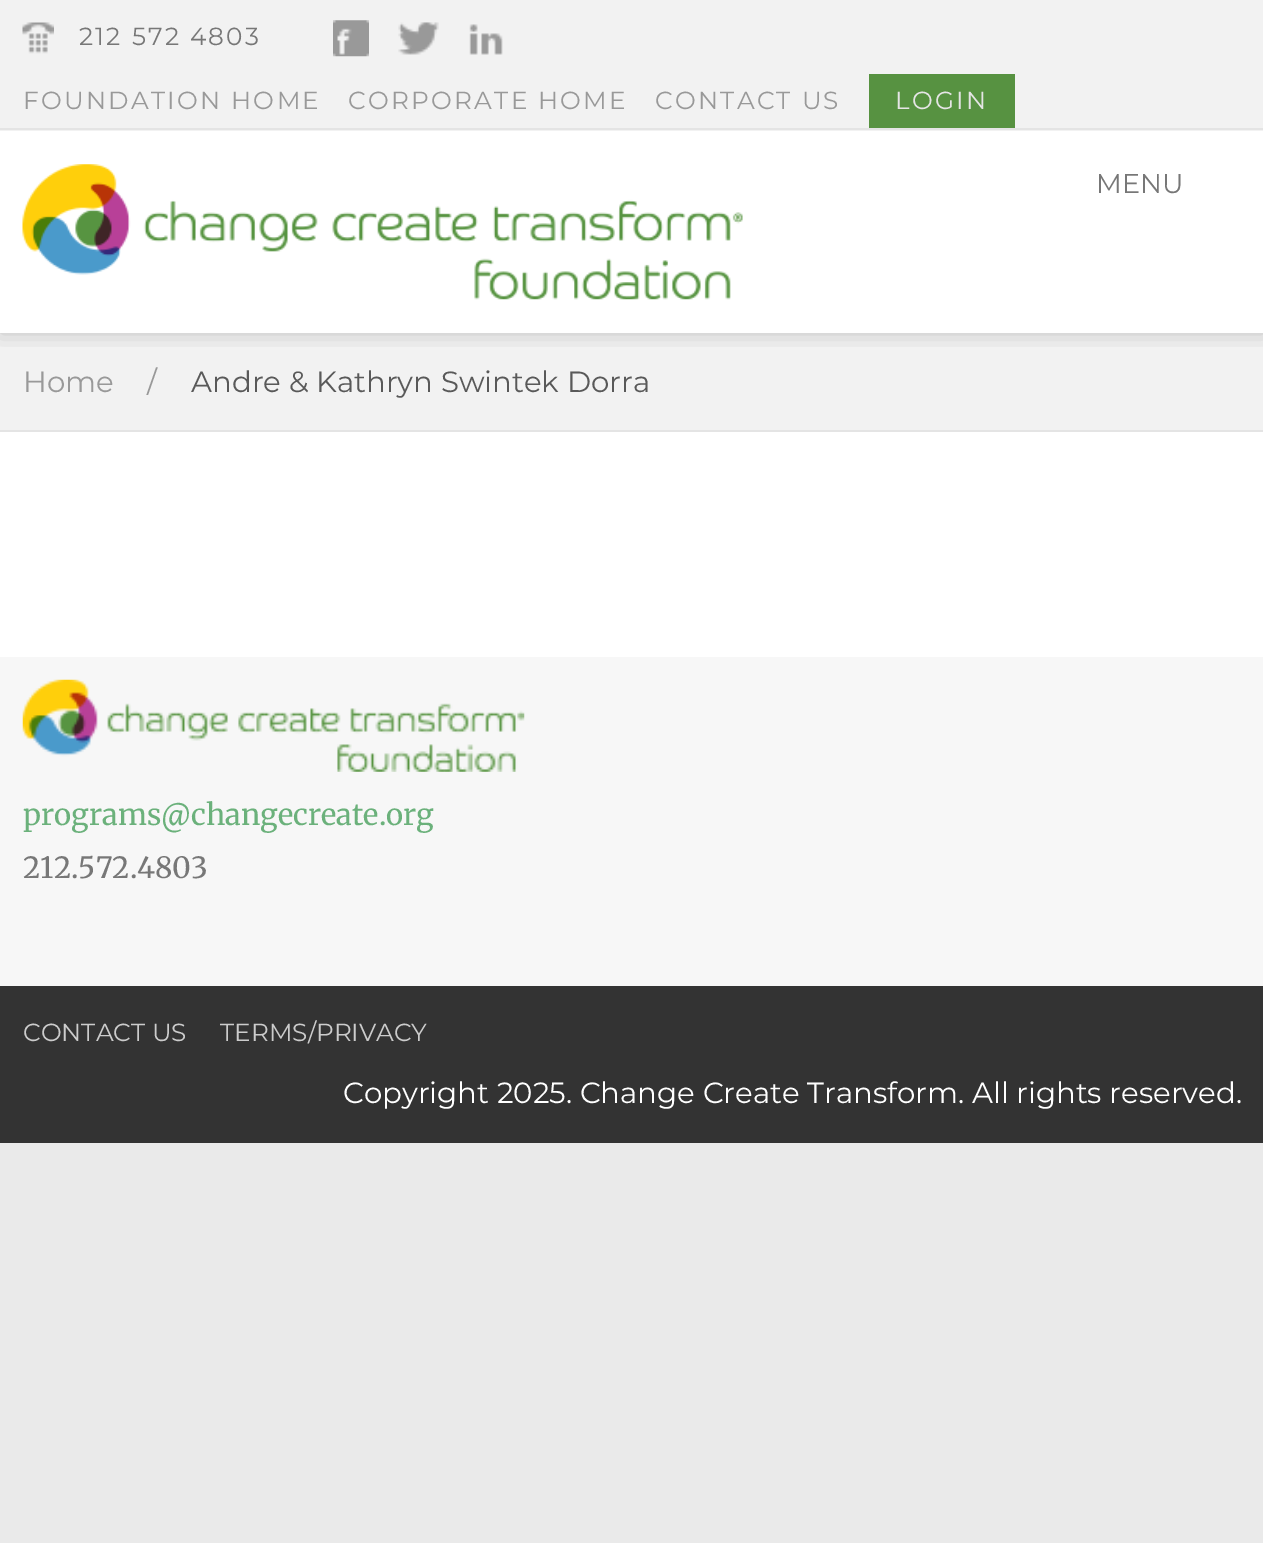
%!PS
<< /PageSize [1263 1543] /PageUsesTransparency true >> setpagedevice
/mt/moveto load def
/gs/gsave load def
/gr/grestore load def
/co { dup -16 bitshift 255 div exch dup -8 bitshift 255 and 255 div exch 255 and 255 div setrgbcolor } def
/fn { [ exch dup neg 0 0 3 -1 roll 0 0 ] selectfont } def
/tx { co fn moveto show } def
/bx { co rectfill } def
/al { dup .setfillconstantalpha .setstrokeconstantalpha } def
/rr { 5 dict begin { /r /h /w /y /x } { exch def } forall
  x r add y moveto x w add y 2 copy h add r arct x w add y h add x 1 index r arct
  x y h add x y r arct x y 2 copy exch w add exch r arct closepath end } def
/sh { 12 dict begin { /a /b /q /h /w /y /x } { exch def } forall gsave /was 0 def
  9 -2 -9 { dup b mul 4 div /e exch def 1 sub .425 mul 2.718 exch exp 1 add a .99 .min exch div /now exch def
    1 1 now sub 1 was sub div sub al /was now def
    w h .min e 2 mul add 0 gt { x e sub y e sub w e 2 mul add h e 2 mul add
      q e add b .6 mul add w h .min 2 div e add .min 0 .max rr fill } if } for grestore end } def
/im { 5 dict begin { /h /w /y /x /name } { exch def } forall
  gsave x y translate w h scale
  w h 8 [w 0 0 h 0 0] name (r) file false 3 colorimage grestore end } def
0 .pushpdf14devicefilter
0 1543 translate 1 -1 scale
4 setmiterlimit
0 0 1263 1543 16#EAEAEA bx
0 131 1263 526 16#FFFFFF bx
0 333 1263 97 16#F2F2F2 bx
gs
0 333 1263 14 rectclip
16#000000 co
0 0 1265 333 0 11 .2 sh
gr
0 0 1263 131 16#F2F2F2 bx
0 128 1263 2 16#E4E4E4 bx
(media/1.raw) 22 22 32 32 im
(media/2.raw) 333 20 36 37 im
(media/3.raw) 398 22 41 33 im
(media/4.raw) 469 24 34 31 im
869 74 146 54 16#579241 bx
(media/5.raw) 22 164 721 136 im
0 430 1263 2 16#E4E4E4 bx
0 657 1263 329 16#F7F7F7 bx
(media/6.raw) 22 679 503 93 im
0 986 1263 157 16#333333 bx
/Montserrat-Regular 24.75 fn
16#777777 co
79 45 mt 2.25 0 (212 572 4803) ashow
16#999999 co
23 109 mt 2.25 0 (FOUNDATION HOME) ashow
348 109 mt 2.25 0 (CORPORATE HOME) ashow
655 109 mt 2.25 0 (CONTACT US) ashow
16#E5E5E5 co
895 109 mt 2.25 0 (LOGIN) ashow
(MENU) 1096 193 /Montserrat-Regular 27 16#777777 tx
(Home) 23 392 /Montserrat-Regular 29.25 16#999999 tx
(/) 147 392 /Montserrat-Regular 29.25 16#999999 tx
(Andre & Kathryn Swintek Dorra) 191 392 /Montserrat-Regular 29.25 16#595959 tx
(programs@changecreate.org) 23 825 /Merriweather-Regular 29.25 16#6BB17B tx
(212.572.4803) 23 878 /Merriweather-Regular 29.25 16#777777 tx
(CONTACT US) 23 1041 /Montserrat-Regular 24.75 16#CCCCCC tx
(TERMS/PRIVACY) 220 1041 /Montserrat-Regular 24.75 16#CCCCCC tx
(Copyright 2025. Change Create Transform. All rights reserved.) 343 1103 /Montserrat-Regular 29.25 16#FFFFFF tx
.poppdf14devicefilter showpage
